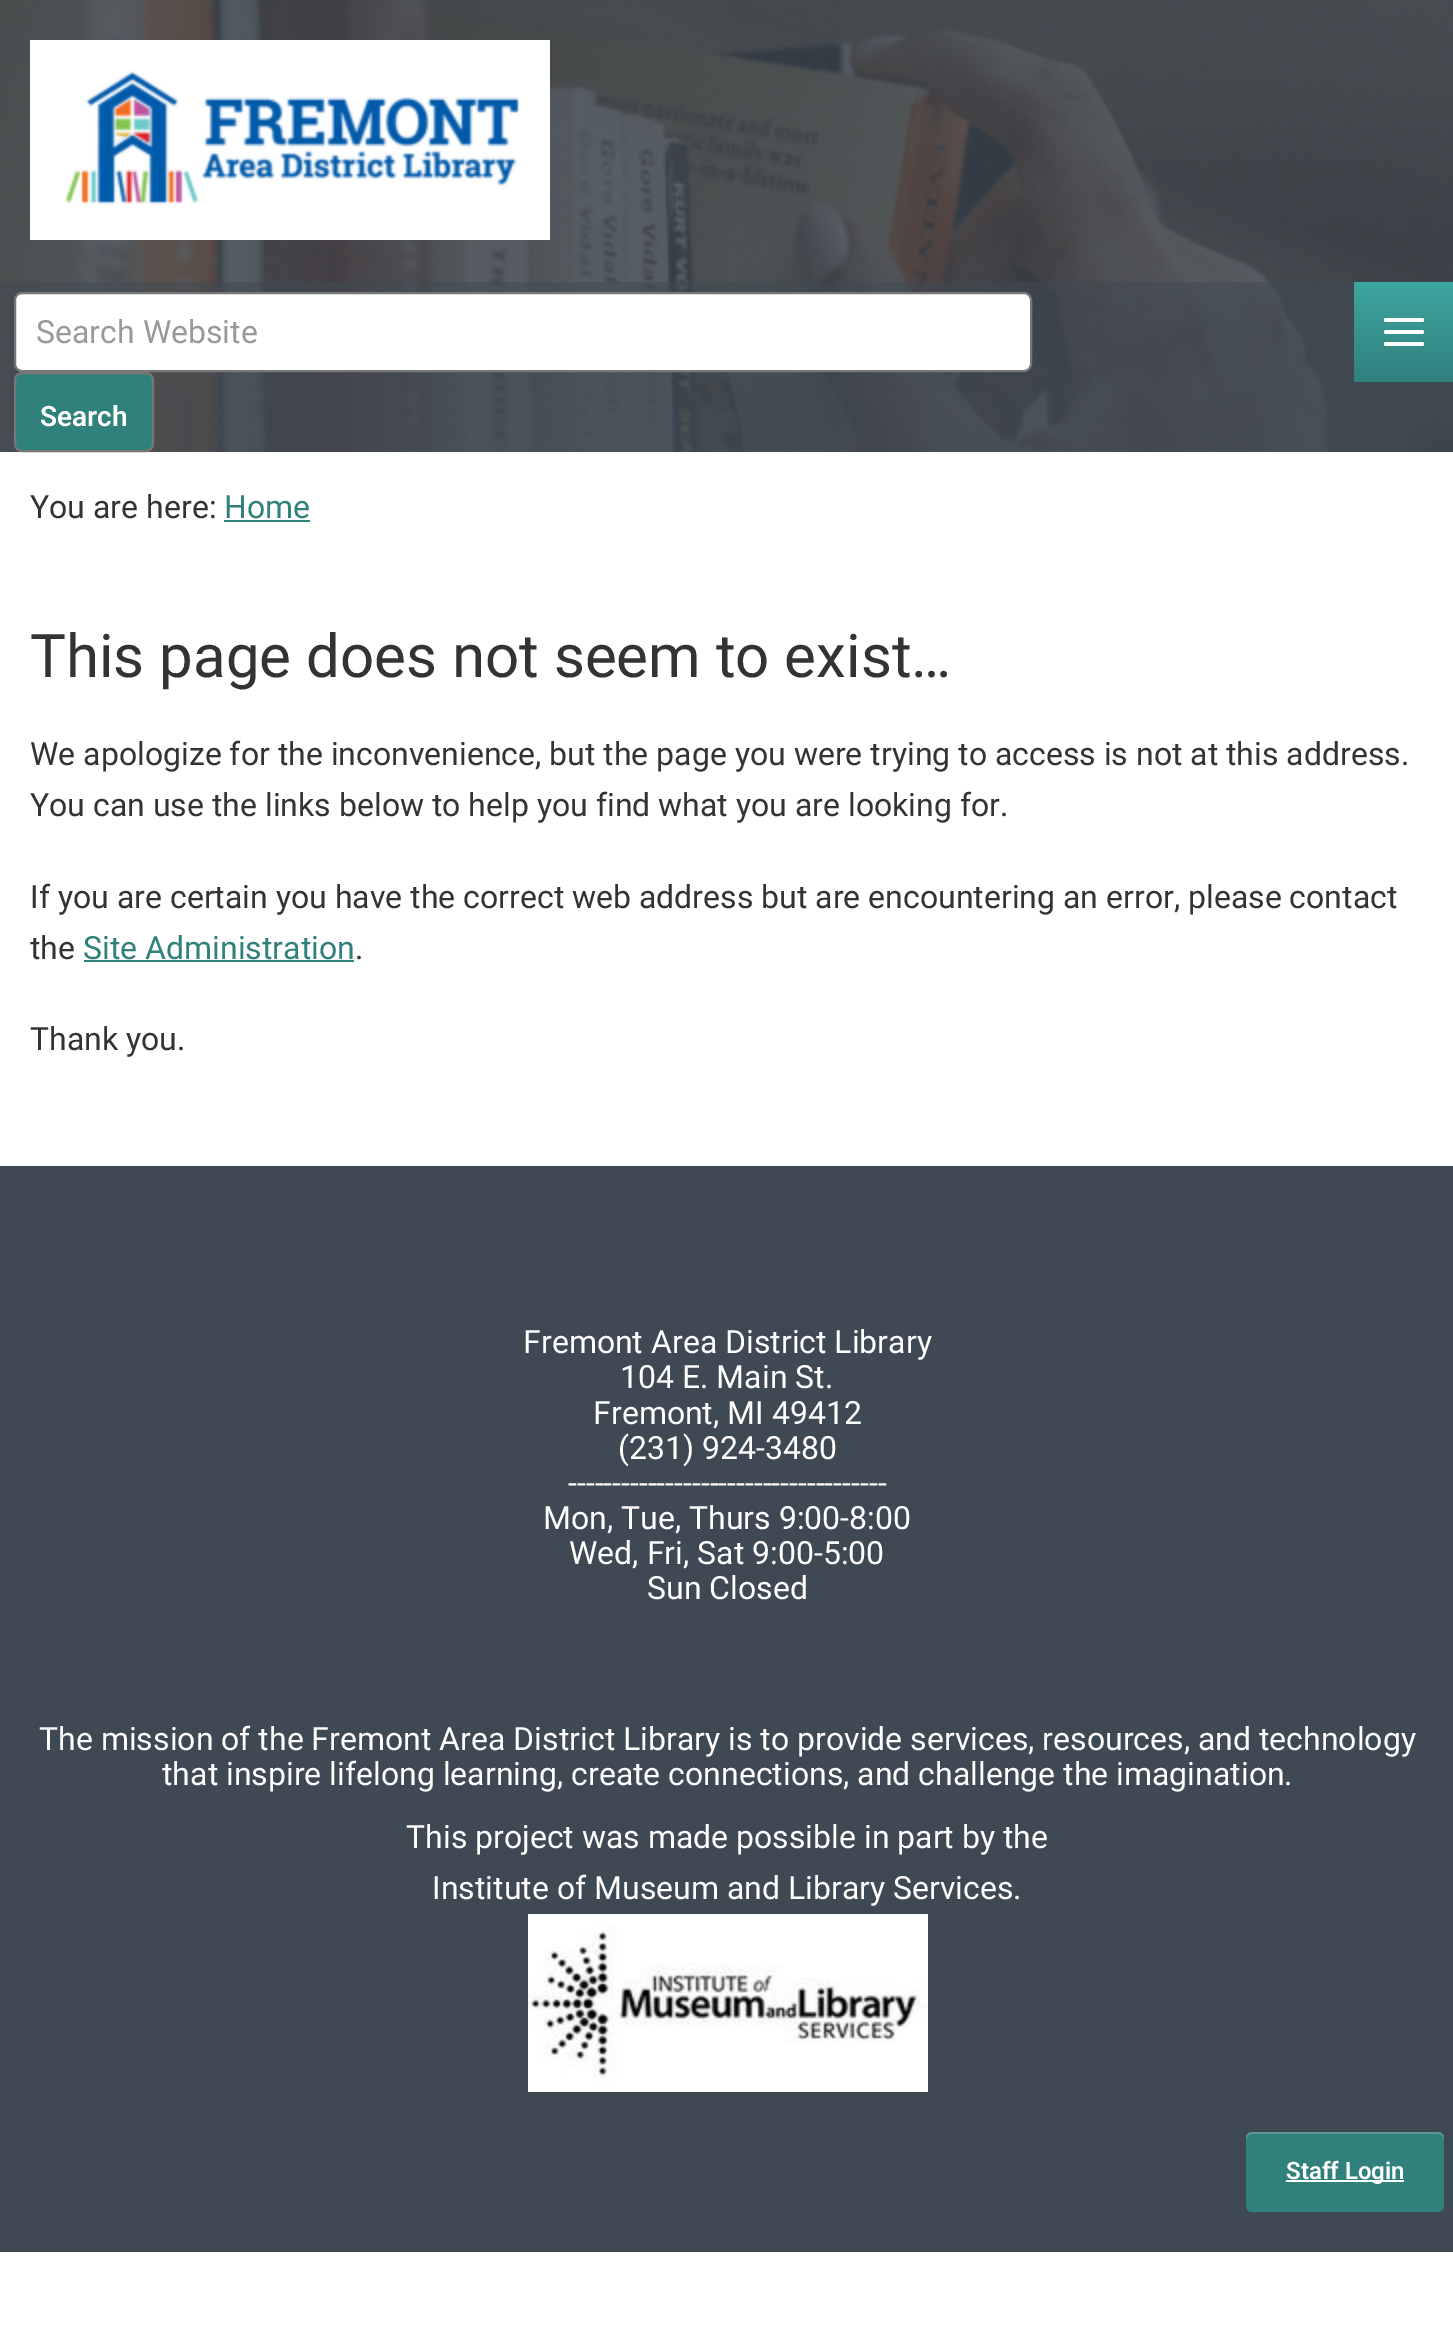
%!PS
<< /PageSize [1453 2330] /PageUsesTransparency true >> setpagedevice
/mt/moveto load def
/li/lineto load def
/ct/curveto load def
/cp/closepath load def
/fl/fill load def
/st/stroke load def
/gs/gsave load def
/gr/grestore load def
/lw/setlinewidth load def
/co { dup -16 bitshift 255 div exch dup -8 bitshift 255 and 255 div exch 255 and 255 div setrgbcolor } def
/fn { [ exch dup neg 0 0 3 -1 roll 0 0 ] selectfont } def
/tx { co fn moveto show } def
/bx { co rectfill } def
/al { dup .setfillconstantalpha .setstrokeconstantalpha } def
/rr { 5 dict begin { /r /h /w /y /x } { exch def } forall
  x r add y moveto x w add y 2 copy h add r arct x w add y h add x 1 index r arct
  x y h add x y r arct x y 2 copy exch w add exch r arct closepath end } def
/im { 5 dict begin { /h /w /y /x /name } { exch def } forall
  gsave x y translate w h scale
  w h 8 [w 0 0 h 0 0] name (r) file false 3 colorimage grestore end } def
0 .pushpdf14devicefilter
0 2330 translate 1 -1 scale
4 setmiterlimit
0 0 1453 2330 16#FFFFFF bx
(media/1.raw) 0 0 1453 452 im
0.8 al
0 0 1453 282 16#3F4953 bx
1 al
(media/2.raw) 30 40 520 200 im
0.9 al
0 282 1453 170 16#3F4953 bx
1 al
16#FFFFFF co
15 293 1016 78 7 rr gs fl gr
16#777777 co
2 lw
st
16#30807B co
15 373 138 78 7 rr gs fl gr
16#777777 co
st
gs 1354 282 mt 1453 282 li 1453 382 li 1354 382 li cp clip newpath
<< /ShadingType 2 /ColorSpace /DeviceRGB /Coords [1404 282 1404 382] /Extend [true true] /Function << /FunctionType 2 /Domain [0 1] /C0 [.243 .647 .624] /C1 [.188 .502 .482] /N 1 >> >> shfill gr
16#FFFFFF co
1384 318 40 4 2 rr fl
1384 330 40 4 2 rr fl
1384 342 40 4 2 rr fl
224 520 86 2 16#30807B bx
84 960 270 2 16#30807B bx
0 1166 1453 1086 16#3F4953 bx
(media/3.raw) 528 1914 400 178 im
16#30807B co
1246 2132 198 80 6 rr fl
0.2 al
16#FFFFFF co
1252 2134 mt 1438 2134 li 1441 2134 1444 2137 1444 2140 ct 1444 2138 li 1444 2135 1441 2132 1438 2132 ct 1252 2132 li 1249 2132 1246 2135 1246 2138 ct 1246 2140 li 1246 2137 1249 2134 1252 2134 ct cp fl
1 al
1286 2180 118 2 16#FFFFFF bx
(Search Website) 36 343 /Roboto-Regular 32 16#999999 tx
(Search) 40 426 /Roboto-SemiBold 28 16#FFFFFF tx
(You are here:) 30 518 /Roboto-Regular 32 16#333333 tx
(Home) 224 518 /Roboto-Regular 32 16#30807B tx
(This page does not seem to exist…) 30 677 /Roboto-Regular 60 16#333333 tx
(We apologize for the inconvenience, but the page you were trying to access is not at this address.) 30 765 /Roboto-Regular 32 16#333333 tx
(You can use the links below to help you find what you are looking for.) 30 816 /Roboto-Regular 32 16#333333 tx
(If you are certain you have the correct web address but are encountering an error, please contact) 30 908 /Roboto-Regular 32 16#333333 tx
(the) 30 959 /Roboto-Regular 32 16#333333 tx
(Site Administration) 83 959 /Roboto-Regular 32 16#30807B tx
(.) 355 959 /Roboto-Regular 32 16#333333 tx
(Thank you.) 30 1050 /Roboto-Regular 32 16#333333 tx
(Fremont Area District Library) 523 1353 /Roboto-Regular 32 16#FFFFFF tx
(104 E. Main St.) 620 1388 /Roboto-Regular 32 16#FFFFFF tx
(Fremont, MI 49412) 593 1424 /Roboto-Regular 32 16#FFFFFF tx
(\(231\) 924-3480) 618 1459 /Roboto-Regular 32 16#FFFFFF tx
(------------------------------------) 568 1494 /Roboto-Regular 32 16#FFFFFF tx
(Mon, Tue, Thurs 9:00-8:00) 543 1529 /Roboto-Regular 32 16#FFFFFF tx
(Wed, Fri, Sat 9:00-5:00) 569 1564 /Roboto-Regular 32 16#FFFFFF tx
(Sun Closed) 647 1599 /Roboto-Regular 32 16#FFFFFF tx
(The mission of the Fremont Area District Library is to provide services, resources, and technology) 39 1750 /Roboto-Regular 32 16#FFFFFF tx
(that inspire lifelong learning, create connections, and challenge the imagination.) 162 1785 /Roboto-Regular 32 16#FFFFFF tx
(This project was made possible in part by the) 406 1848 /Roboto-Regular 32 16#FFFFFF tx
(Institute of Museum and Library Services.) 432 1899 /Roboto-Regular 32 16#FFFFFF tx
(Staff Login) 1286 2179 /Roboto-SemiBold 24 16#FFFFFF tx
.poppdf14devicefilter showpage
